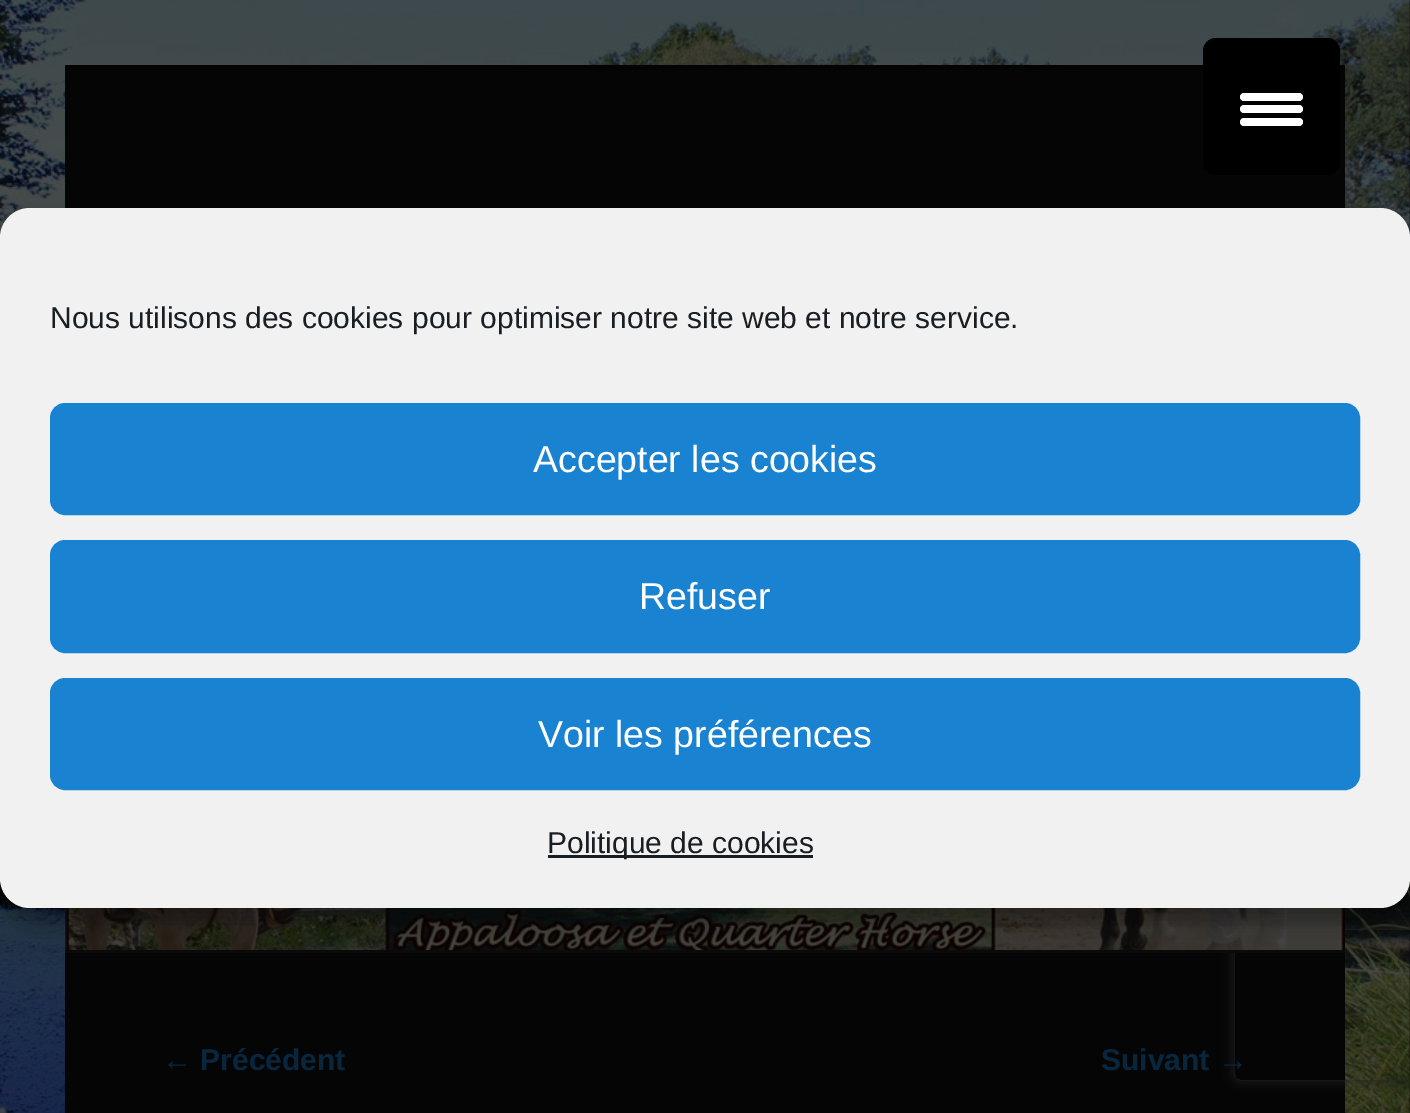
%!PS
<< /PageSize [1410 1113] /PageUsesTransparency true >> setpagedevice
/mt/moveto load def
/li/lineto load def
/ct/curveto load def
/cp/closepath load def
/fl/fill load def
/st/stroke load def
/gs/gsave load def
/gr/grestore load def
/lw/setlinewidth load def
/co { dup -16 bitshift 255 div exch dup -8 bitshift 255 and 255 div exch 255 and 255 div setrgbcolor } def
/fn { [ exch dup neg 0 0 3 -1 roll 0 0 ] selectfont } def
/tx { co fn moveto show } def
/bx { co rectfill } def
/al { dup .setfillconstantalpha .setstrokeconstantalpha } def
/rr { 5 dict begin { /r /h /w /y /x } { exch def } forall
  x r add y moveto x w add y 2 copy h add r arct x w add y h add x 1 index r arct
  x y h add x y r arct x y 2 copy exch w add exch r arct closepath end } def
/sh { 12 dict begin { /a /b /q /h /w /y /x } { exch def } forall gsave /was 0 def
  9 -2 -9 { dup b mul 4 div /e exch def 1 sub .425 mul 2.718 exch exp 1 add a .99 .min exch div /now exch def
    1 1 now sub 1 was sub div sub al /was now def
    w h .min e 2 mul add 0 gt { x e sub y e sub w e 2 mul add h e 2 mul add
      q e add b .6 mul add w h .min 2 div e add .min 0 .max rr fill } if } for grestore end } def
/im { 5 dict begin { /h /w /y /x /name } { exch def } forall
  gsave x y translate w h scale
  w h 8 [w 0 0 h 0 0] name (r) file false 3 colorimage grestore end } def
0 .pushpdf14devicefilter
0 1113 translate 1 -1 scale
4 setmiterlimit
0 0 1410 1113 16#FFFFFF bx
(media/1.raw) 0 0 1410 1113 im
65 70 1280 1043 16#050505 bx
gs
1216 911 mt 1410 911 li 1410 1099 li 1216 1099 li cp 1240 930 mt 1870 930 li 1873 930 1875 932 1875 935 ct 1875 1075 li 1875 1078 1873 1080 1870 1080 ct 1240 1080 li 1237 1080 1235 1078 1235 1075 ct 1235 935 li 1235 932 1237 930 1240 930 ct cp eoclip newpath
16#262626 co
1235 930 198 150 5 6 1 sh
gr
(media/2.raw) 65 908 1280 42 im
65 950 1280 3 16#0A0A0A bx
16#000000 co
0 233 1410 700 30 25 .19 sh
65 65 1280 5 16#030303 bx
16#000000 co
1203 38 137 137 13 rr fl
16#FFFFFF co
1240 105 63 8 4 rr fl
1240 93 63 8 4 rr fl
1240 118 63 8 4 rr fl
16#000000 co
0 223 1410 700 30 7.5 .23 sh
16#F1F1F1 co
0 208 1410 700 30 rr fl
16#1982D1 co
51.5 404.5 1307 109 13.5 rr gs fl gr
3 lw
st
51.5 541.5 1307 110 13.5 rr gs fl gr
st
51.5 679.5 1307 109 13.5 rr gs fl gr
st
548 855 265 3 16#191E23 bx
(Nous utilisons des cookies pour optimiser notre site web et notre service.) 50 328 /LiberationSans-Regular 30 16#191E23 tx
(Accepter les cookies) 533 472 /LiberationSans-Regular 37.5 16#FFFFFF tx
(Refuser) 639 609 /LiberationSans-Regular 37.5 16#FFFFFF tx
(Voir les préférences) 538 747 /LiberationSans-Regular 37.5 16#FFFFFF tx
(Politique de cookies) 547 853 /LiberationSans-Regular 30 16#191E23 tx
(← Précédent) 162 1070 /LiberationSans-Bold 30 16#08273F tx
(Suivant →) 1101 1070 /LiberationSans-Bold 30 16#08273F tx
.poppdf14devicefilter showpage
